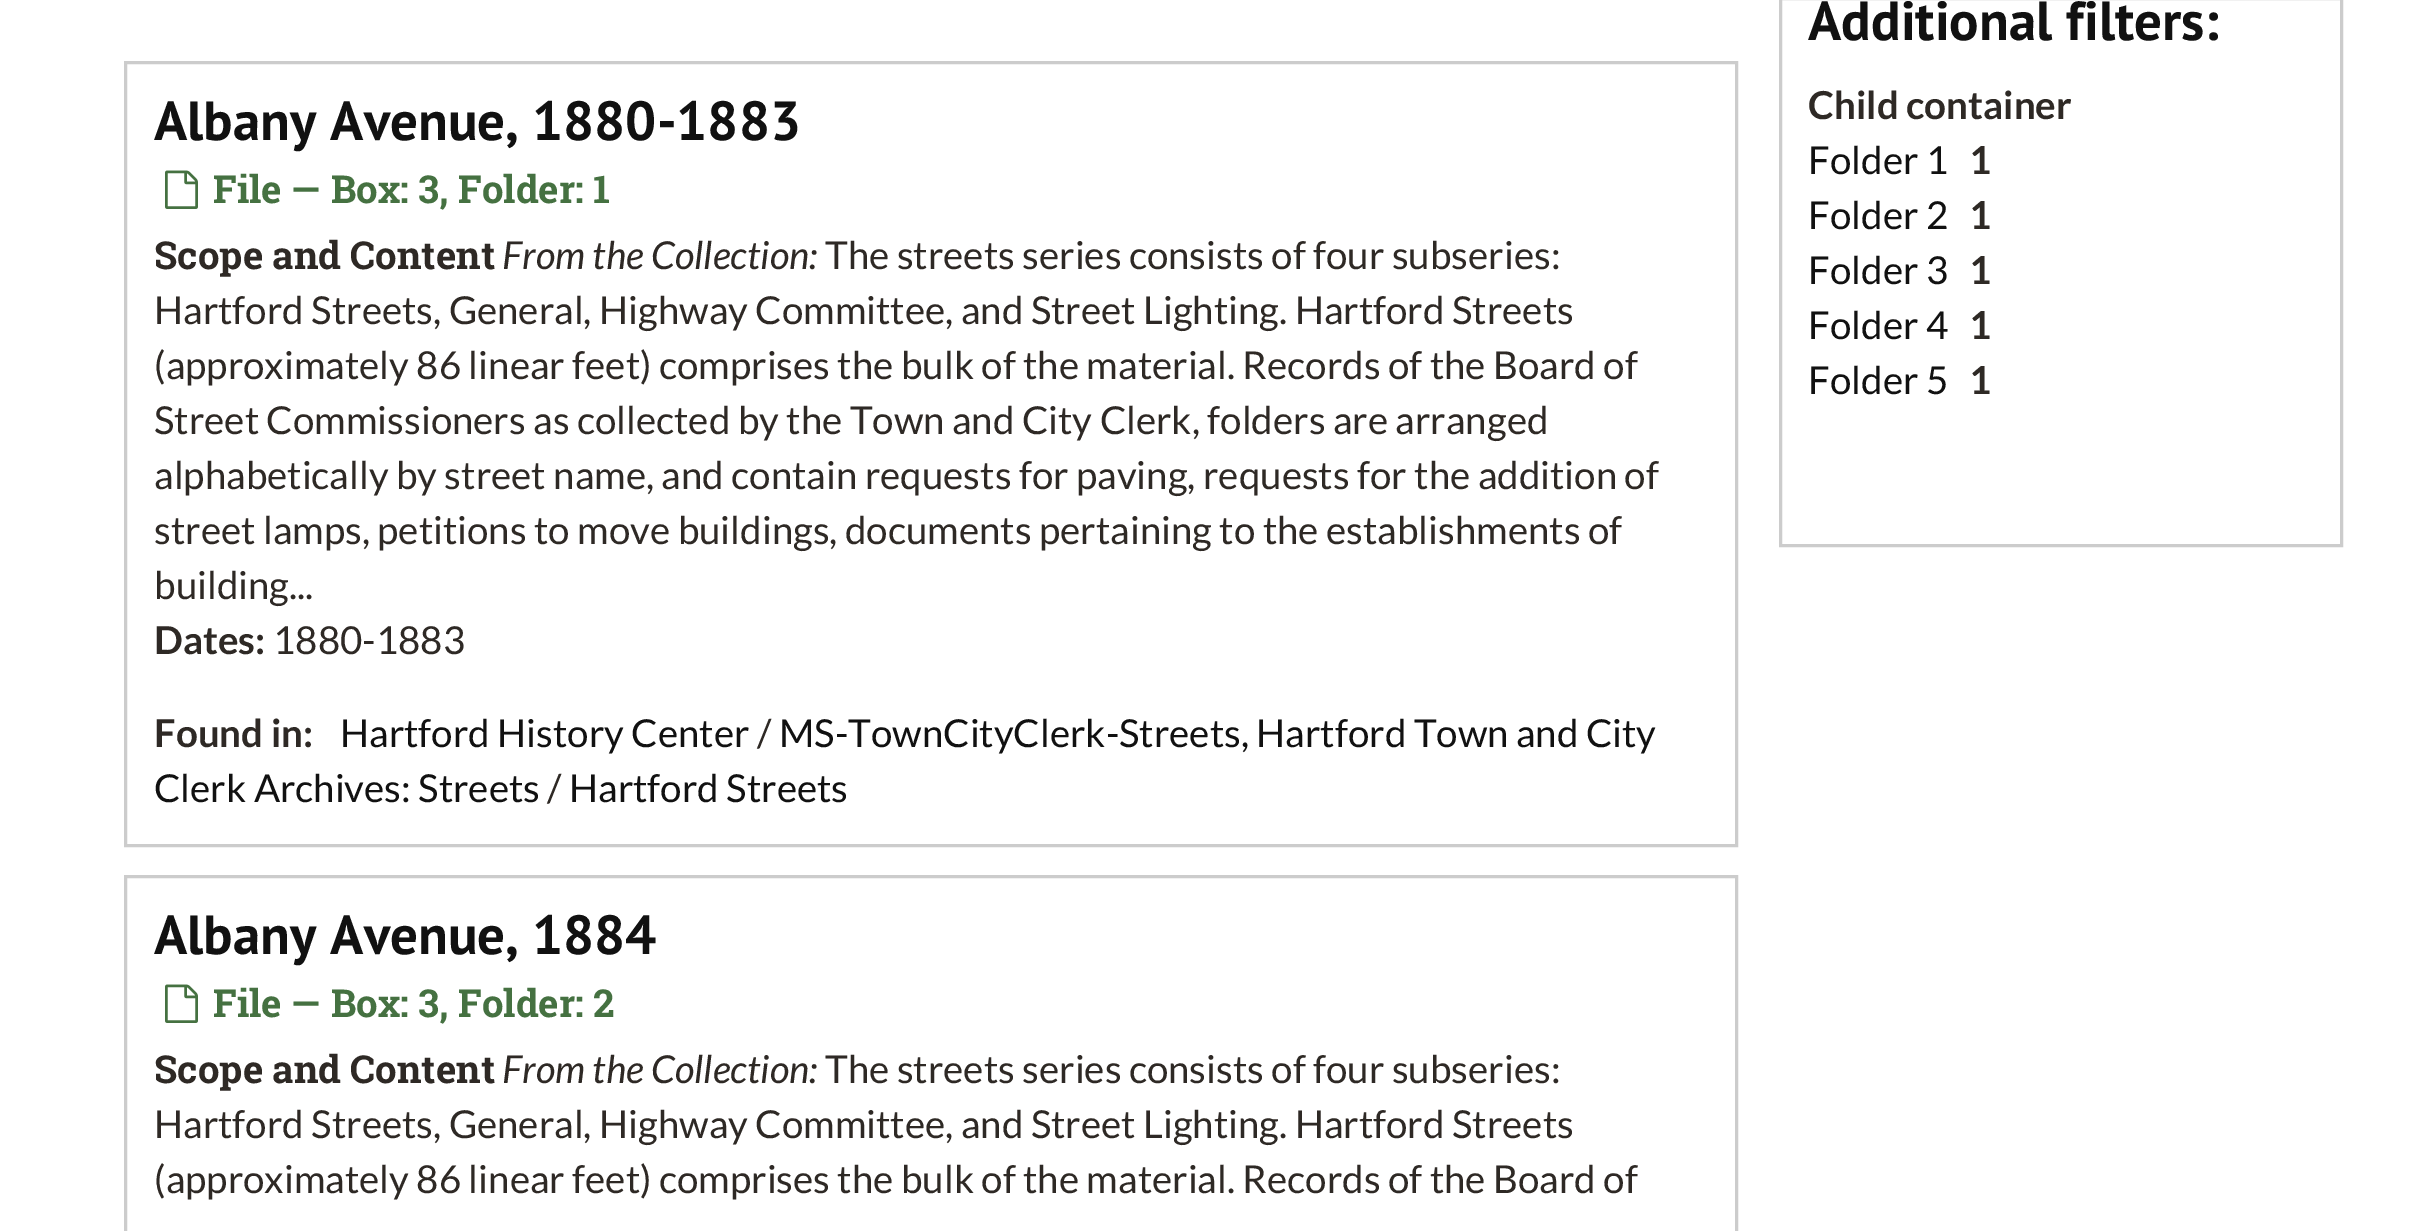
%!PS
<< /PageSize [2424 1231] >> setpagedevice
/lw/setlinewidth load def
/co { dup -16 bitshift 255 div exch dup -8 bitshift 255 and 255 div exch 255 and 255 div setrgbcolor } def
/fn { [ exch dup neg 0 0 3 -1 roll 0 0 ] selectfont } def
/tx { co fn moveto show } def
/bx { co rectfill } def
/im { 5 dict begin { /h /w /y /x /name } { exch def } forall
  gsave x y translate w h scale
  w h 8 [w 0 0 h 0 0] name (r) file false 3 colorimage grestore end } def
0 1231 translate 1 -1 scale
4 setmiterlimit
0 0 2424 1231 16#FFFFFF bx
16#CCCCCC co
3 lw
125.5 62.5 1611 783 rectstroke
(media/1.raw) 165 170 33 39 im
125.5 876.5 1611 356 rectstroke
(media/1.raw) 165 984 33 39 im
1780.5 -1.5 561 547 rectstroke
(Albany Avenue, 1880-1883) 154 140 /PTSans-Bold 55 16#111111 tx
(File — Box: 3, Folder: 1) 213 203 /RobotoSlab-Bold 38.5 16#457141 tx
(Scope and Content) 154 269 /RobotoSlab-Bold 38.5 16#2E2925 tx
(From the Collection:) 502 269 /Lato-Italic 38.5 16#2E2925 tx
(The streets series consists of four subseries:) 825 269 /Lato-Regular 38.5 16#2E2925 tx
(Hartford Streets, General, Highway Committee, and Street Lighting. Hartford Streets) 154 324 /Lato-Regular 38.5 16#2E2925 tx
(\(approximately 86 linear feet\) comprises the bulk of the material. Records of the Board of) 154 379 /Lato-Regular 38.5 16#2E2925 tx
(Street Commissioners as collected by the Town and City Clerk, folders are arranged) 154 434 /Lato-Regular 38.5 16#2E2925 tx
(alphabetically by street name, and contain requests for paving, requests for the addition of) 154 489 /Lato-Regular 38.5 16#2E2925 tx
(street lamps, petitions to move buildings, documents pertaining to the establishments of) 154 544 /Lato-Regular 38.5 16#2E2925 tx
(building...) 154 599 /Lato-Regular 38.5 16#2E2925 tx
(Dates:) 154 654 /Lato-Bold 38.5 16#2E2925 tx
(1880-1883) 273 654 /Lato-Regular 38.5 16#2E2925 tx
(Found in:) 154 747 /Lato-Bold 38.5 16#2E2925 tx
(Hartford History Center) 340 747 /Lato-Regular 38.5 16#111111 tx
(/) 757 747 /Lato-Regular 38.5 16#2E2925 tx
(MS-TownCityClerk-Streets, Hartford Town and City) 779 747 /Lato-Regular 38.5 16#111111 tx
(Clerk Archives: Streets) 154 802 /Lato-Regular 38.5 16#111111 tx
(/) 547 802 /Lato-Regular 38.5 16#2E2925 tx
(Hartford Streets) 569 802 /Lato-Regular 38.5 16#111111 tx
(Albany Avenue, 1884) 154 954 /PTSans-Bold 55 16#111111 tx
(File — Box: 3, Folder: 2) 213 1017 /RobotoSlab-Bold 38.5 16#457141 tx
(Scope and Content) 154 1083 /RobotoSlab-Bold 38.5 16#2E2925 tx
(From the Collection:) 502 1083 /Lato-Italic 38.5 16#2E2925 tx
(The streets series consists of four subseries:) 825 1083 /Lato-Regular 38.5 16#2E2925 tx
(Hartford Streets, General, Highway Committee, and Street Lighting. Hartford Streets) 154 1138 /Lato-Regular 38.5 16#2E2925 tx
(\(approximately 86 linear feet\) comprises the bulk of the material. Records of the Board of) 154 1193 /Lato-Regular 38.5 16#2E2925 tx
(Additional filters:) 1808 40 /PTSans-Bold 55 16#111111 tx
(Child container) 1808 119 /Lato-Bold 38.5 16#2E2925 tx
(Folder 1) 1808 174 /Lato-Regular 38.5 16#111111 tx
(1) 1969 174 /Lato-Bold 38.5 16#2E2925 tx
(Folder 2) 1808 229 /Lato-Regular 38.5 16#111111 tx
(1) 1969 229 /Lato-Bold 38.5 16#2E2925 tx
(Folder 3) 1808 284 /Lato-Regular 38.5 16#111111 tx
(1) 1969 284 /Lato-Bold 38.5 16#2E2925 tx
(Folder 4) 1808 339 /Lato-Regular 38.5 16#111111 tx
(1) 1969 339 /Lato-Bold 38.5 16#2E2925 tx
(Folder 5) 1808 394 /Lato-Regular 38.5 16#111111 tx
(1) 1969 394 /Lato-Bold 38.5 16#2E2925 tx
showpage
